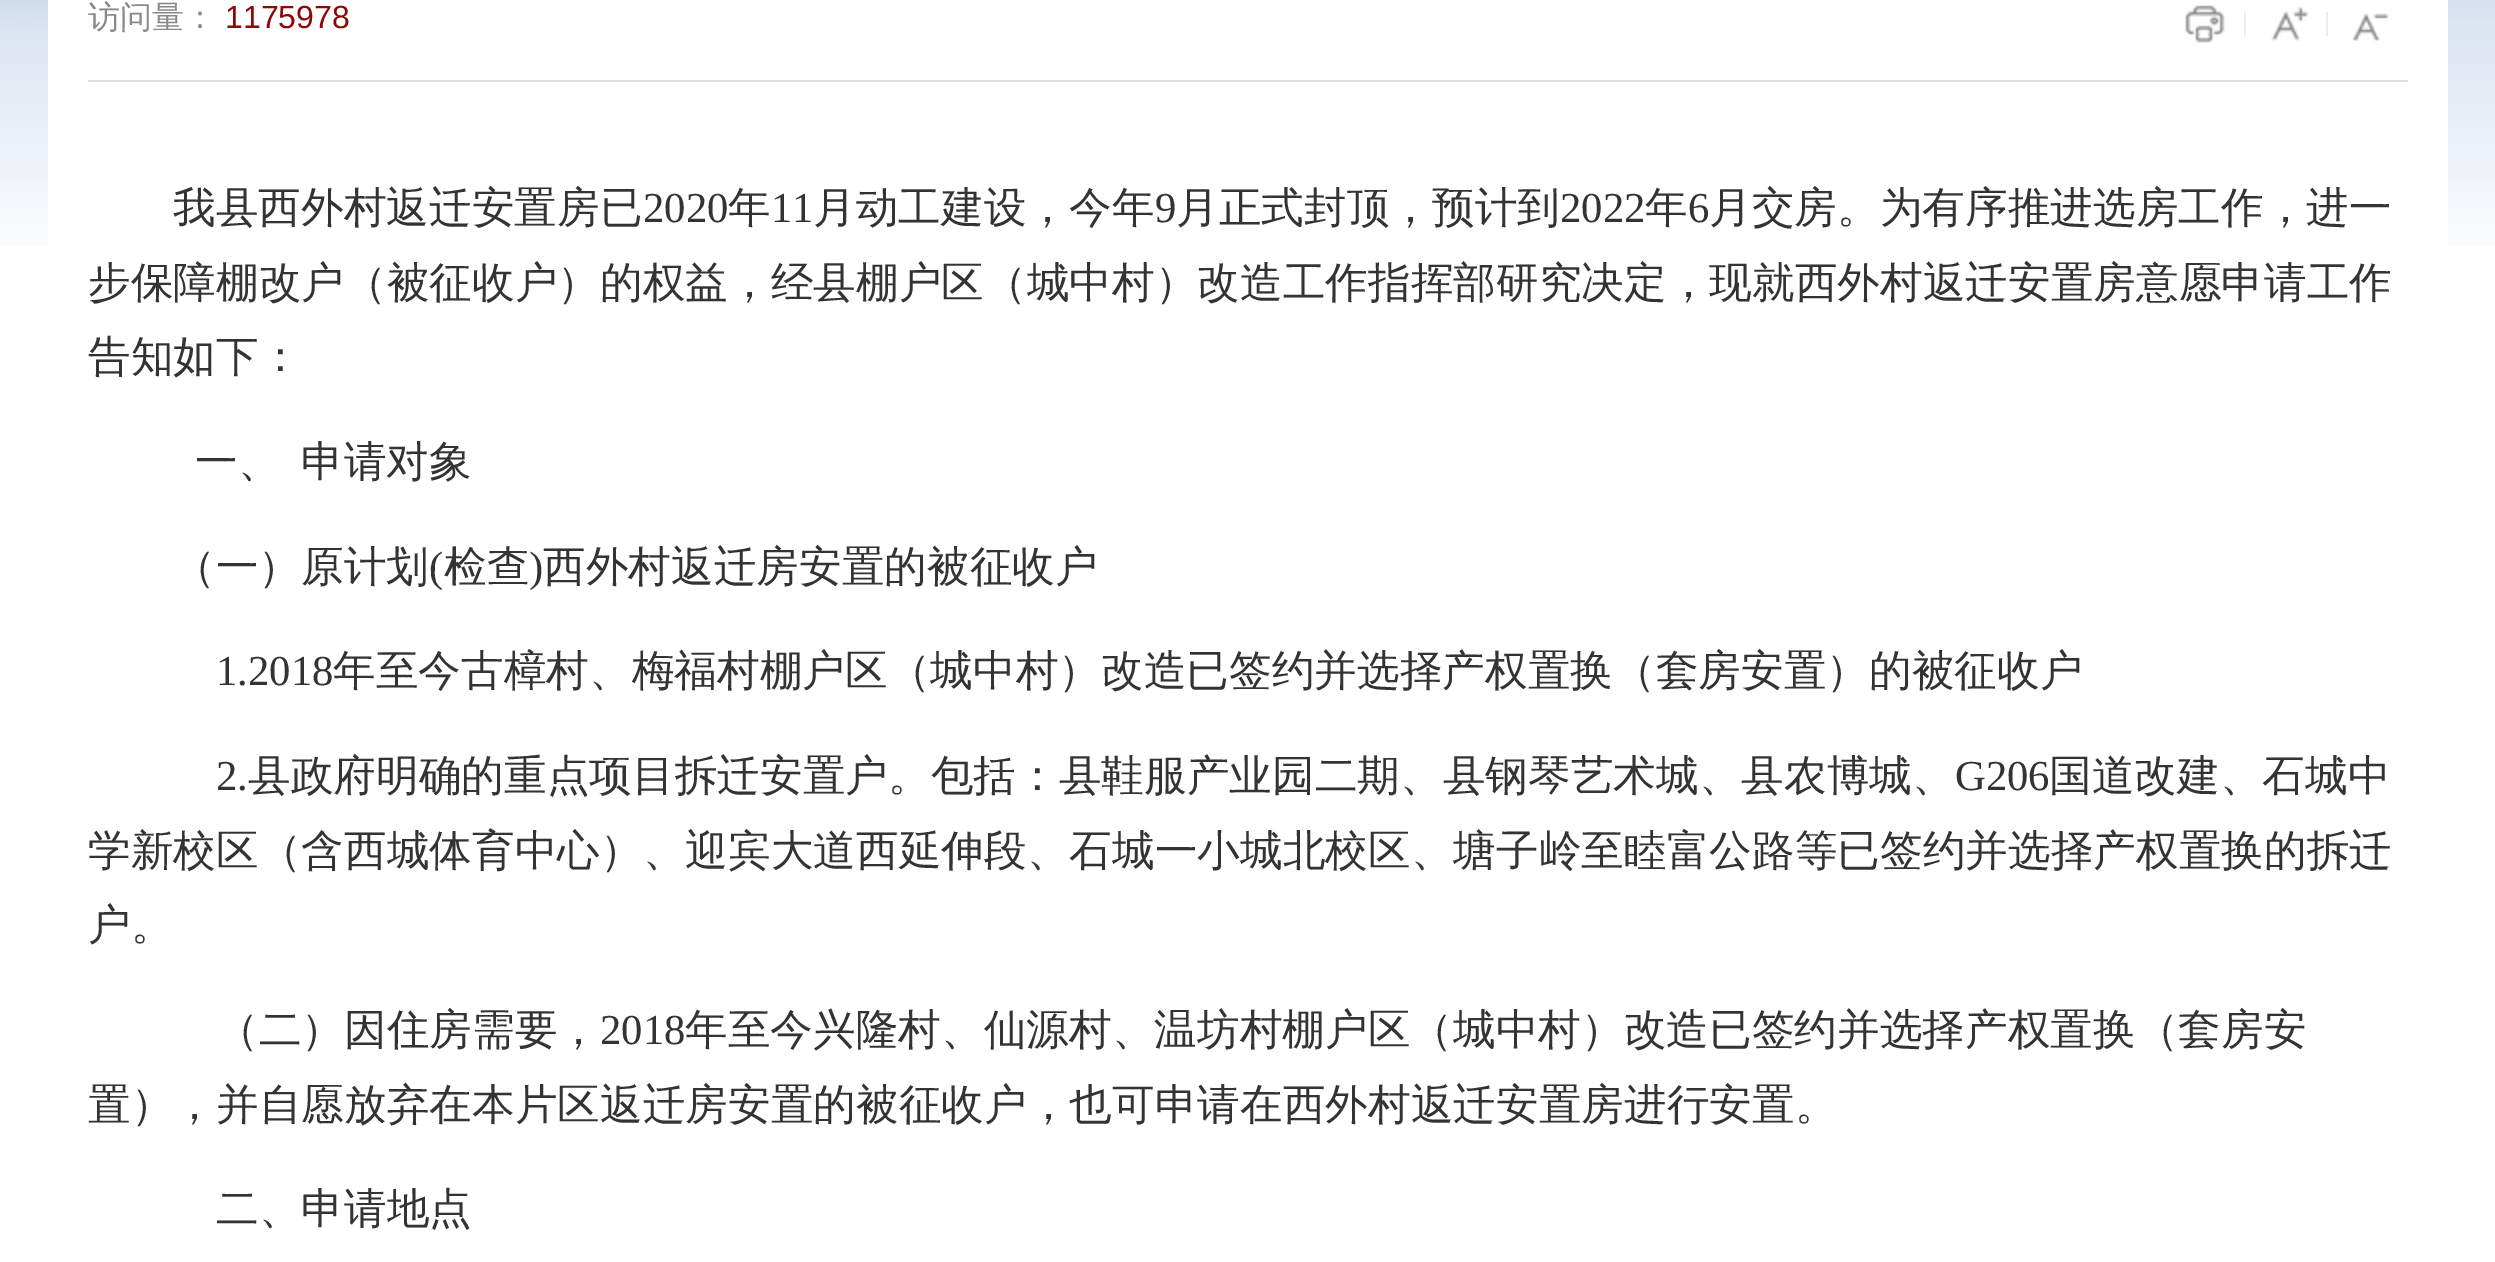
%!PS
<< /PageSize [2495 1262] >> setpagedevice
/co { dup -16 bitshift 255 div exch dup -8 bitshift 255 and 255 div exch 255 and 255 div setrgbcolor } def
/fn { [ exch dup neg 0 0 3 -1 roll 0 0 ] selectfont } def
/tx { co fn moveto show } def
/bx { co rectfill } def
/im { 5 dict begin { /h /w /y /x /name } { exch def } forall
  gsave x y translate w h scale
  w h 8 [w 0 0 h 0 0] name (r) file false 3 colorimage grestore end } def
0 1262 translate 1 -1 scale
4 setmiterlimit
0 0 2495 1262 16#FFFFFF bx
(media/1.raw) 0 0 2495 245 im
48 0 2400 245 16#FFFFFF bx
88 80 2320 2 16#E1E1E1 bx
(media/2.raw) 2185 5 40 38 im
2244 12 2 24 16#ECECEC bx
(media/3.raw) 2271 7 38 34 im
2326 12 2 24 16#ECECEC bx
(media/4.raw) 2352 13 37 28 im
(访问量：) 88 28 /WenQuanYiZenHei-Medium 32 16#888888 tx
(1175978) 225 28 /LiberationSans-Regular 32 16#8D0707 tx
(我县西外村返迁安置房已) 173 222 /WenQuanYiZenHei-Medium 42.67 16#333333 tx
(2020) 643 222 /LiberationSerif-Regular 42.67 16#333333 tx
(年) 728 222 /WenQuanYiZenHei-Medium 42.67 16#333333 tx
(11) 771 222 /LiberationSerif-Regular 42.67 16#333333 tx
(月动工建设，今年) 813 222 /WenQuanYiZenHei-Medium 42.67 16#333333 tx
(9) 1155 222 /LiberationSerif-Regular 42.67 16#333333 tx
(月正式封顶，预计到) 1176 222 /WenQuanYiZenHei-Medium 42.67 16#333333 tx
(2022) 1560 222 /LiberationSerif-Regular 42.67 16#333333 tx
(年) 1645 222 /WenQuanYiZenHei-Medium 42.67 16#333333 tx
(6) 1688 222 /LiberationSerif-Regular 42.67 16#333333 tx
(月交房。为有序推进选房工作，进一) 1709 222 /WenQuanYiZenHei-Medium 42.67 16#333333 tx
(步保障棚改户（被征收户）的权益，经县棚户区（城中村）改造工作指挥部研究决定，现就西外村返迁安置房意愿申请工作) 88 297 /WenQuanYiZenHei-Medium 42.67 16#333333 tx
(告知如下：) 88 371 /WenQuanYiZenHei-Medium 42.67 16#333333 tx
(一、) 195 476 /WenQuanYiZenHei-Medium 42.67 16#333333 tx
(申请对象) 301 476 /WenQuanYiZenHei-Medium 42.67 16#333333 tx
(（一）原计划) 173 581 /WenQuanYiZenHei-Medium 42.67 16#333333 tx
(\() 429 581 /LiberationSerif-Regular 42.67 16#333333 tx
(检查) 444 581 /WenQuanYiZenHei-Medium 42.67 16#333333 tx
(\)) 529 581 /LiberationSerif-Regular 42.67 16#333333 tx
(西外村返迁房安置的被征收户) 543 581 /WenQuanYiZenHei-Medium 42.67 16#333333 tx
(1.2018) 216 685 /LiberationSerif-Regular 42.67 16#333333 tx
(年至今古樟村、梅福村棚户区（城中村）改造已签约并选择产权置换（套房安置）的被征收户) 333 685 /WenQuanYiZenHei-Medium 42.67 16#333333 tx
(2.) 216 790 /LiberationSerif-Regular 42.67 16#333333 tx
(县政府明确的重点项目拆迁安置户。包括：县鞋服产业园二期、县钢琴艺术城、县农博城、) 248 790 /WenQuanYiZenHei-Medium 42.67 16#333333 tx
(G206) 1955 790 /LiberationSerif-Regular 42.67 16#333333 tx
(国道改建、石城中) 2049 790 /WenQuanYiZenHei-Medium 42.67 16#333333 tx
(学新校区（含西城体育中心）、迎宾大道西延伸段、石城一小城北校区、塘子岭至睦富公路等已签约并选择产权置换的拆迁) 88 865 /WenQuanYiZenHei-Medium 42.67 16#333333 tx
(户。) 88 939 /WenQuanYiZenHei-Medium 42.67 16#333333 tx
(（二）因住房需要，) 216 1044 /WenQuanYiZenHei-Medium 42.67 16#333333 tx
(2018) 600 1044 /LiberationSerif-Regular 42.67 16#333333 tx
(年至今兴隆村、仙源村、温坊村棚户区（城中村）改造已签约并选择产权置换（套房安) 685 1044 /WenQuanYiZenHei-Medium 42.67 16#333333 tx
(置），并自愿放弃在本片区返迁房安置的被征收户，也可申请在西外村返迁安置房进行安置。) 88 1119 /WenQuanYiZenHei-Medium 42.67 16#333333 tx
(二、申请地点) 216 1223 /WenQuanYiZenHei-Medium 42.67 16#333333 tx
showpage
